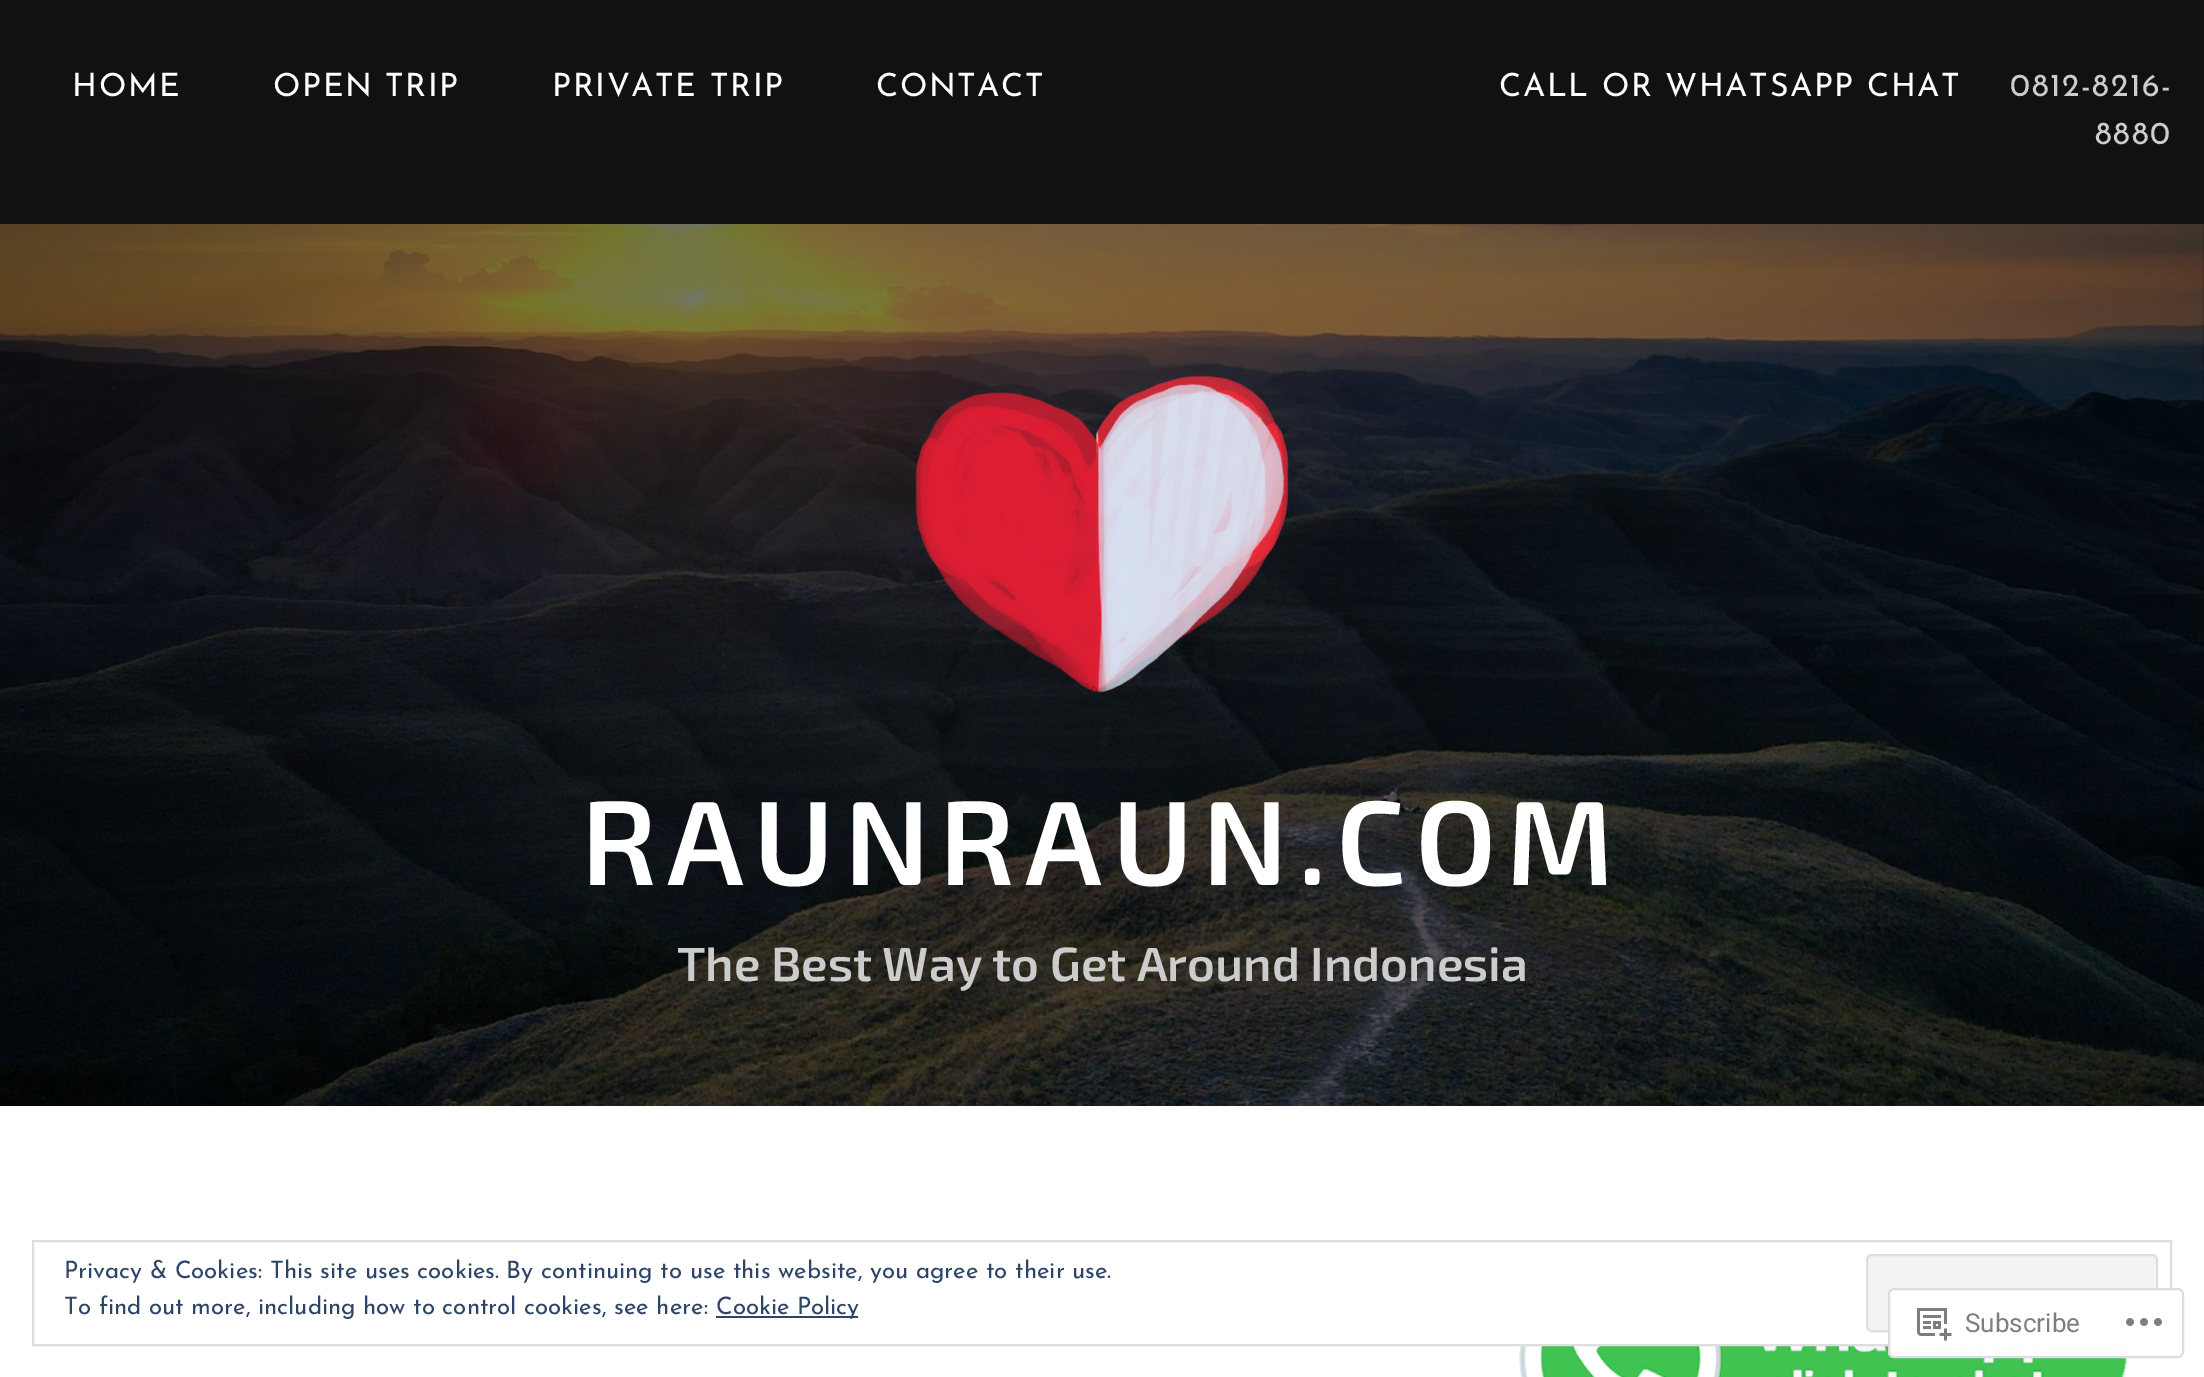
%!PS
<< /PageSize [2204 1377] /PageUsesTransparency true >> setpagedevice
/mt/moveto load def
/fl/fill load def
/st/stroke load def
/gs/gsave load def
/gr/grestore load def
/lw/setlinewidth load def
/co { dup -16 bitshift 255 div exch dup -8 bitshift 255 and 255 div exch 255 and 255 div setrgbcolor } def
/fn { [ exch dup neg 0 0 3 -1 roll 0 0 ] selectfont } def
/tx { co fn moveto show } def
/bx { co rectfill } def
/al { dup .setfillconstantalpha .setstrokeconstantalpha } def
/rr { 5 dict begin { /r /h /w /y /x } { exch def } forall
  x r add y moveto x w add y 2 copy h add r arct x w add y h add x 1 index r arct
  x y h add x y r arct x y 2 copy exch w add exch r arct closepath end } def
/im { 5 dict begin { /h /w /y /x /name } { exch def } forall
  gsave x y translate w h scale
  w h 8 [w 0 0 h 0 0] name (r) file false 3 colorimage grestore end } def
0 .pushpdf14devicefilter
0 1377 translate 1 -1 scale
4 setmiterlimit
0 0 2204 1377 16#FFFFFF bx
0 0 2204 1106 16#111111 bx
(media/1.raw) 0 224 2204 882 im
(media/2.raw) 915 375 374 318 im
(media/3.raw) 1519 1346 608 31 im
16#DEDEDE co
2 lw
33 1241 2138 104 rectstroke
16#F3F3F3 co
1867 1255 290 76 5 rr gs fl gr
16#DEDEDE co
st
716 1316 142 2 16#2E4467 bx
0.98 al
16#FFFFFF co
1888 1288 296 70 6 rr fl
16#DCDCDE co
1889 1289 294 68 5 rr st
1 al
(media/4.raw) 1917 1308 35 33 im
(media/5.raw) 2126 1318 36 8 im
/JosefinSans-Regular 32 fn
16#FFFFFF co
72 96 mt 1.6 0 (HOME) ashow
273 96 mt 1.6 0 (OPEN TRIP) ashow
552 96 mt 1.6 0 (PRIVATE TRIP) ashow
876 96 mt 1.6 0 (CONTACT) ashow
1499 96 mt 1.6 0 (CALL OR WHATSAPP CHAT) ashow
16#CCCCCC co
2010 96 mt 1.6 0 (0812-8216-) ashow
2095 144 mt 1.6 0 (8880) ashow
/Exo2-SemiBold 120 fn
16#FFFFFF co
581 885 mt 9.6 0 (RAUNRAUN.COM) ashow
(The Best Way to Get Around Indonesia) 677 981 /Exo2-SemiBold 48 16#CCCCCC tx
(Privacy & Cookies: This site uses cookies. By continuing to use this website, you agree to their use.) 64 1278 /JosefinSans-Regular 24 16#2E4467 tx
(To find out more, including how to control cookies, see here:) 64 1314 /JosefinSans-Regular 24 16#2E4467 tx
(Cookie Policy) 716 1314 /JosefinSans-Regular 24 16#2E4467 tx
(Subscribe) 1965 1332 /Roboto-Regular 26 16#7B7F84 tx
.poppdf14devicefilter showpage
